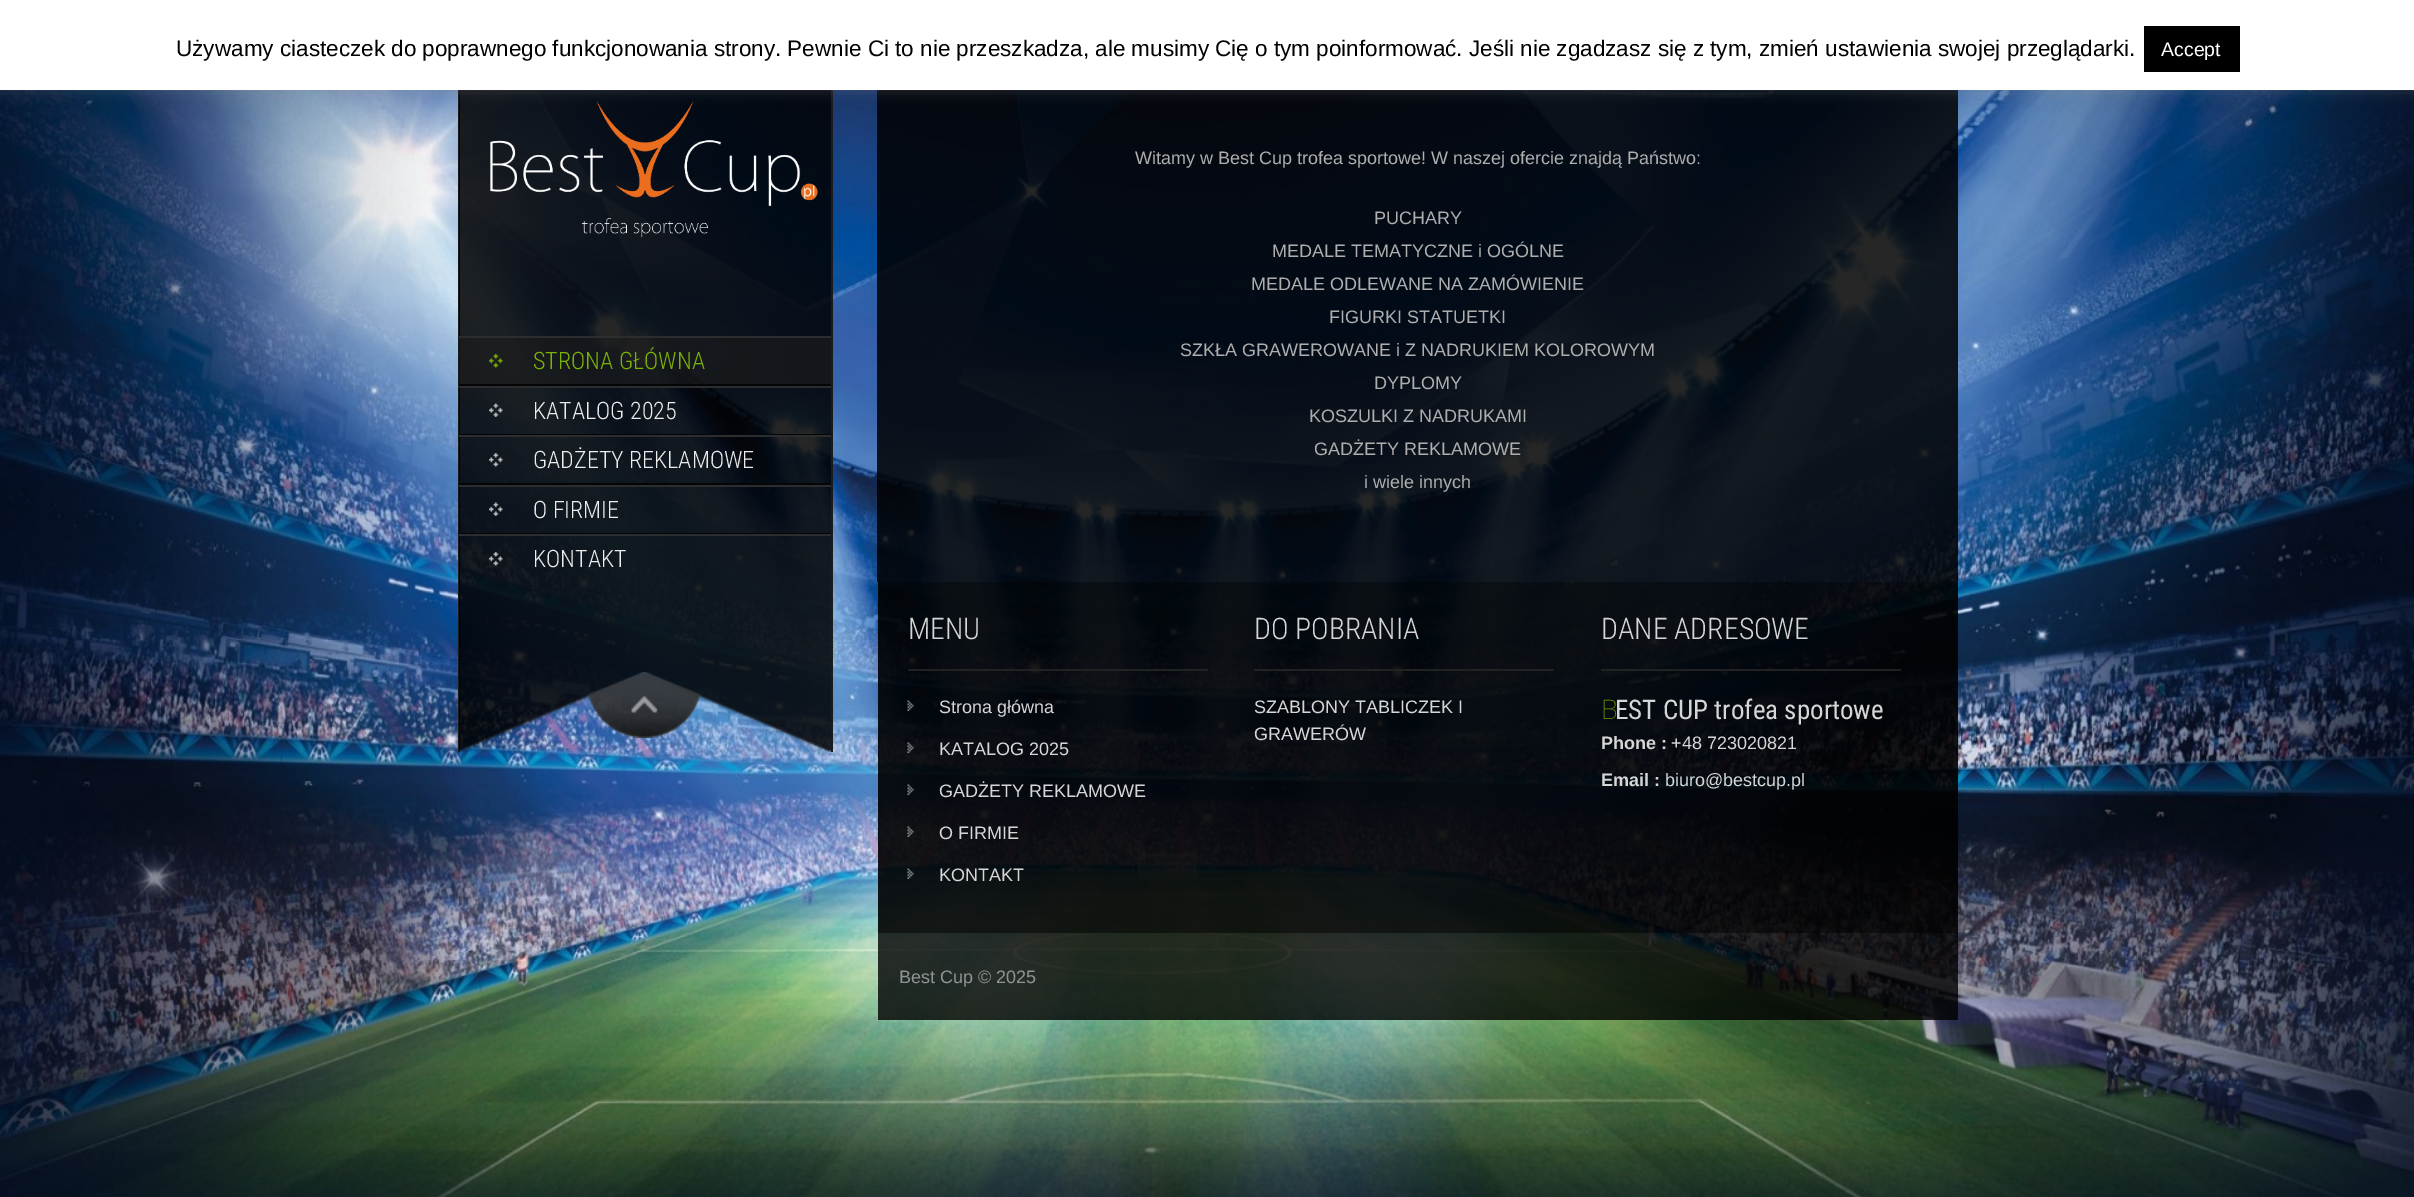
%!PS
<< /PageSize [2414 1197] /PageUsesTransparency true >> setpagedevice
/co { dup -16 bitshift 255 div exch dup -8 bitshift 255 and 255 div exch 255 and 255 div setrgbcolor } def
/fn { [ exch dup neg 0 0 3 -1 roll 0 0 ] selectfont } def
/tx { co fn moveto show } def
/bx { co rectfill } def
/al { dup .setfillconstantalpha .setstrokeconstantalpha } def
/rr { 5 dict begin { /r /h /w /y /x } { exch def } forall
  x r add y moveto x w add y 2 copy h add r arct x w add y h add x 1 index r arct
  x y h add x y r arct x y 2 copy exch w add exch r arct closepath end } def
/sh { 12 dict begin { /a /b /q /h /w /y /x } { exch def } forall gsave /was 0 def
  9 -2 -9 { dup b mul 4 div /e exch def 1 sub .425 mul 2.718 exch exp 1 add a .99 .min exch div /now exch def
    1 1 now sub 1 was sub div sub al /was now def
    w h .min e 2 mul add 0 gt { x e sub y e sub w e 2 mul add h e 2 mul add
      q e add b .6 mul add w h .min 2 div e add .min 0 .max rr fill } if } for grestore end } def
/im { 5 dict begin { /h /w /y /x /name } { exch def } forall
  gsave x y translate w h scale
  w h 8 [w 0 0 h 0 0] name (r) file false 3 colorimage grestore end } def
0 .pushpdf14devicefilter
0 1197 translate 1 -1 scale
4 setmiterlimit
0 0 2414 1197 16#FFFFFF bx
(media/1.raw) 0 90 2414 1107 im
831 90 2 662 16#1B1B1B bx
458 90 2 662 16#1B1B1B bx
0.85 al
459 90 372 246 16#000000 bx
1 al
(media/2.raw) 490 101 328 137 im
0.85 al
877 90 1081 492 16#000000 bx
1 al
16#ACABAB co
0 -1 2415 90 0 7.5 .3 sh
0 0 2414 90 16#FFFFFF bx
2144 26 96 46 16#000000 bx
0.85 al
459 338 372 334 16#000000 bx
0.6 al
459 338 372 46 16#1B1B1B bx
1 al
459 336 372 2 16#2C2D2E bx
459 384 372 2 16#040506 bx
(media/3.raw) 489 354 14 14 im
459 386 372 2 16#2C2D2E bx
459 434 372 1 16#040506 bx
(media/4.raw) 489 403 14 14 im
459 435 372 2 16#2C2D2E bx
459 483 372 2 16#040506 bx
(media/5.raw) 489 453 14 14 im
459 485 372 2 16#2C2D2E bx
459 533 372 1 16#040506 bx
(media/6.raw) 489 502 14 14 im
459 534 372 2 16#2C2D2E bx
(media/7.raw) 489 552 14 14 im
(media/8.raw) 459 672 372 80 im
(media/9.raw) 588 672 113 66 im
0.9 al
878 582 1080 351 16#000000 bx
908 669 300 2 16#242425 bx
1 al
(media/10.raw) 907 700 7 11 im
(media/11.raw) 907 742 7 11 im
(media/12.raw) 907 784 7 11 im
(media/13.raw) 907 826 7 11 im
(media/14.raw) 907 868 7 11 im
0.9 al
1254 669 300 2 16#242425 bx
1601 669 300 2 16#242425 bx
0.8 al
878 933 1080 87 16#000000 bx
1 al
(Używamy ciasteczek do poprawnego funkcjonowania strony. Pewnie Ci to nie przeszkadza, ale musimy Cię o tym poinformować. Jeśli nie zgadzasz się z tym, zmień ustawienia swojej przeglądarki.) 176 56 /LiberationSans-Regular 22.5 16#000000 tx
(Accept) 2161 56 /LiberationSans-Regular 19.5 16#FFFFFF tx
(STRONA GŁÓWNA) 533 369 /RobotoCondensed-Light 24 16#7BB303 tx
(KATALOG 2025) 533 419 /RobotoCondensed-Light 24 16#EEEDED tx
(GADŻETY REKLAMOWE) 533 468 /RobotoCondensed-Light 24 16#EEEDED tx
(O FIRMIE) 533 518 /RobotoCondensed-Light 24 16#EEEDED tx
(KONTAKT) 533 567 /RobotoCondensed-Light 24 16#EEEDED tx
(Witamy w Best Cup trofea sportowe! W naszej ofercie znajdą Państwo:) 1135 164 /LiberationSans-Regular 18 16#AEAEAE tx
(PUCHARY) 1374 224 /LiberationSans-Regular 18 16#AEAEAE tx
(MEDALE TEMATYCZNE i OGÓLNE) 1272 257 /LiberationSans-Regular 18 16#AEAEAE tx
(MEDALE ODLEWANE NA ZAMÓWIENIE) 1251 290 /LiberationSans-Regular 18 16#AEAEAE tx
(FIGURKI STATUETKI) 1329 323 /LiberationSans-Regular 18 16#AEAEAE tx
(SZKŁA GRAWEROWANE i Z NADRUKIEM KOLOROWYM) 1180 356 /LiberationSans-Regular 18 16#AEAEAE tx
(DYPLOMY) 1374 389 /LiberationSans-Regular 18 16#AEAEAE tx
(KOSZULKI Z NADRUKAMI) 1309 422 /LiberationSans-Regular 18 16#AEAEAE tx
(GADŻETY REKLAMOWE) 1314 455 /LiberationSans-Regular 18 16#AEAEAE tx
(i wiele innych) 1364 488 /LiberationSans-Regular 18 16#AEAEAE tx
(MENU) 908 639 /RobotoCondensed-Light 29.75 16#D7D6D7 tx
(Strona główna) 939 713 /LiberationSans-Regular 18 16#D7D6D7 tx
(KATALOG 2025) 939 755 /LiberationSans-Regular 18 16#D7D6D7 tx
(GADŻETY REKLAMOWE) 939 797 /LiberationSans-Regular 18 16#D7D6D7 tx
(O FIRMIE) 939 839 /LiberationSans-Regular 18 16#D7D6D7 tx
(KONTAKT) 939 881 /LiberationSans-Regular 18 16#D7D6D7 tx
(DO POBRANIA) 1254 639 /RobotoCondensed-Light 29.75 16#D7D6D7 tx
(SZABLONY TABLICZEK I) 1254 713 /LiberationSans-Regular 18 16#D7D6D7 tx
(GRAWERÓW) 1254 740 /LiberationSans-Regular 18 16#D7D6D7 tx
(DANE ADRESOWE) 1601 639 /RobotoCondensed-Light 29.75 16#D7D6D7 tx
(B) 1601 719 /NotoSans-Thin 27 16#6FA204 tx
(EST CUP trofea sportowe) 1615 719 /RobotoCondensed-Regular 27 16#D7D6D7 tx
(Phone :) 1601 749 /LiberationSans-Bold 18 16#D7D6D7 tx
(+48 723020821) 1671 749 /LiberationSans-Regular 18 16#D7D6D7 tx
(Email :) 1601 786 /LiberationSans-Bold 18 16#D7D6D7 tx
(biuro@bestcup.pl) 1665 786 /LiberationSans-Regular 18 16#D7D6D7 tx
(Best Cup © 2025) 899 983 /LiberationSans-Regular 18 16#929493 tx
.poppdf14devicefilter showpage
